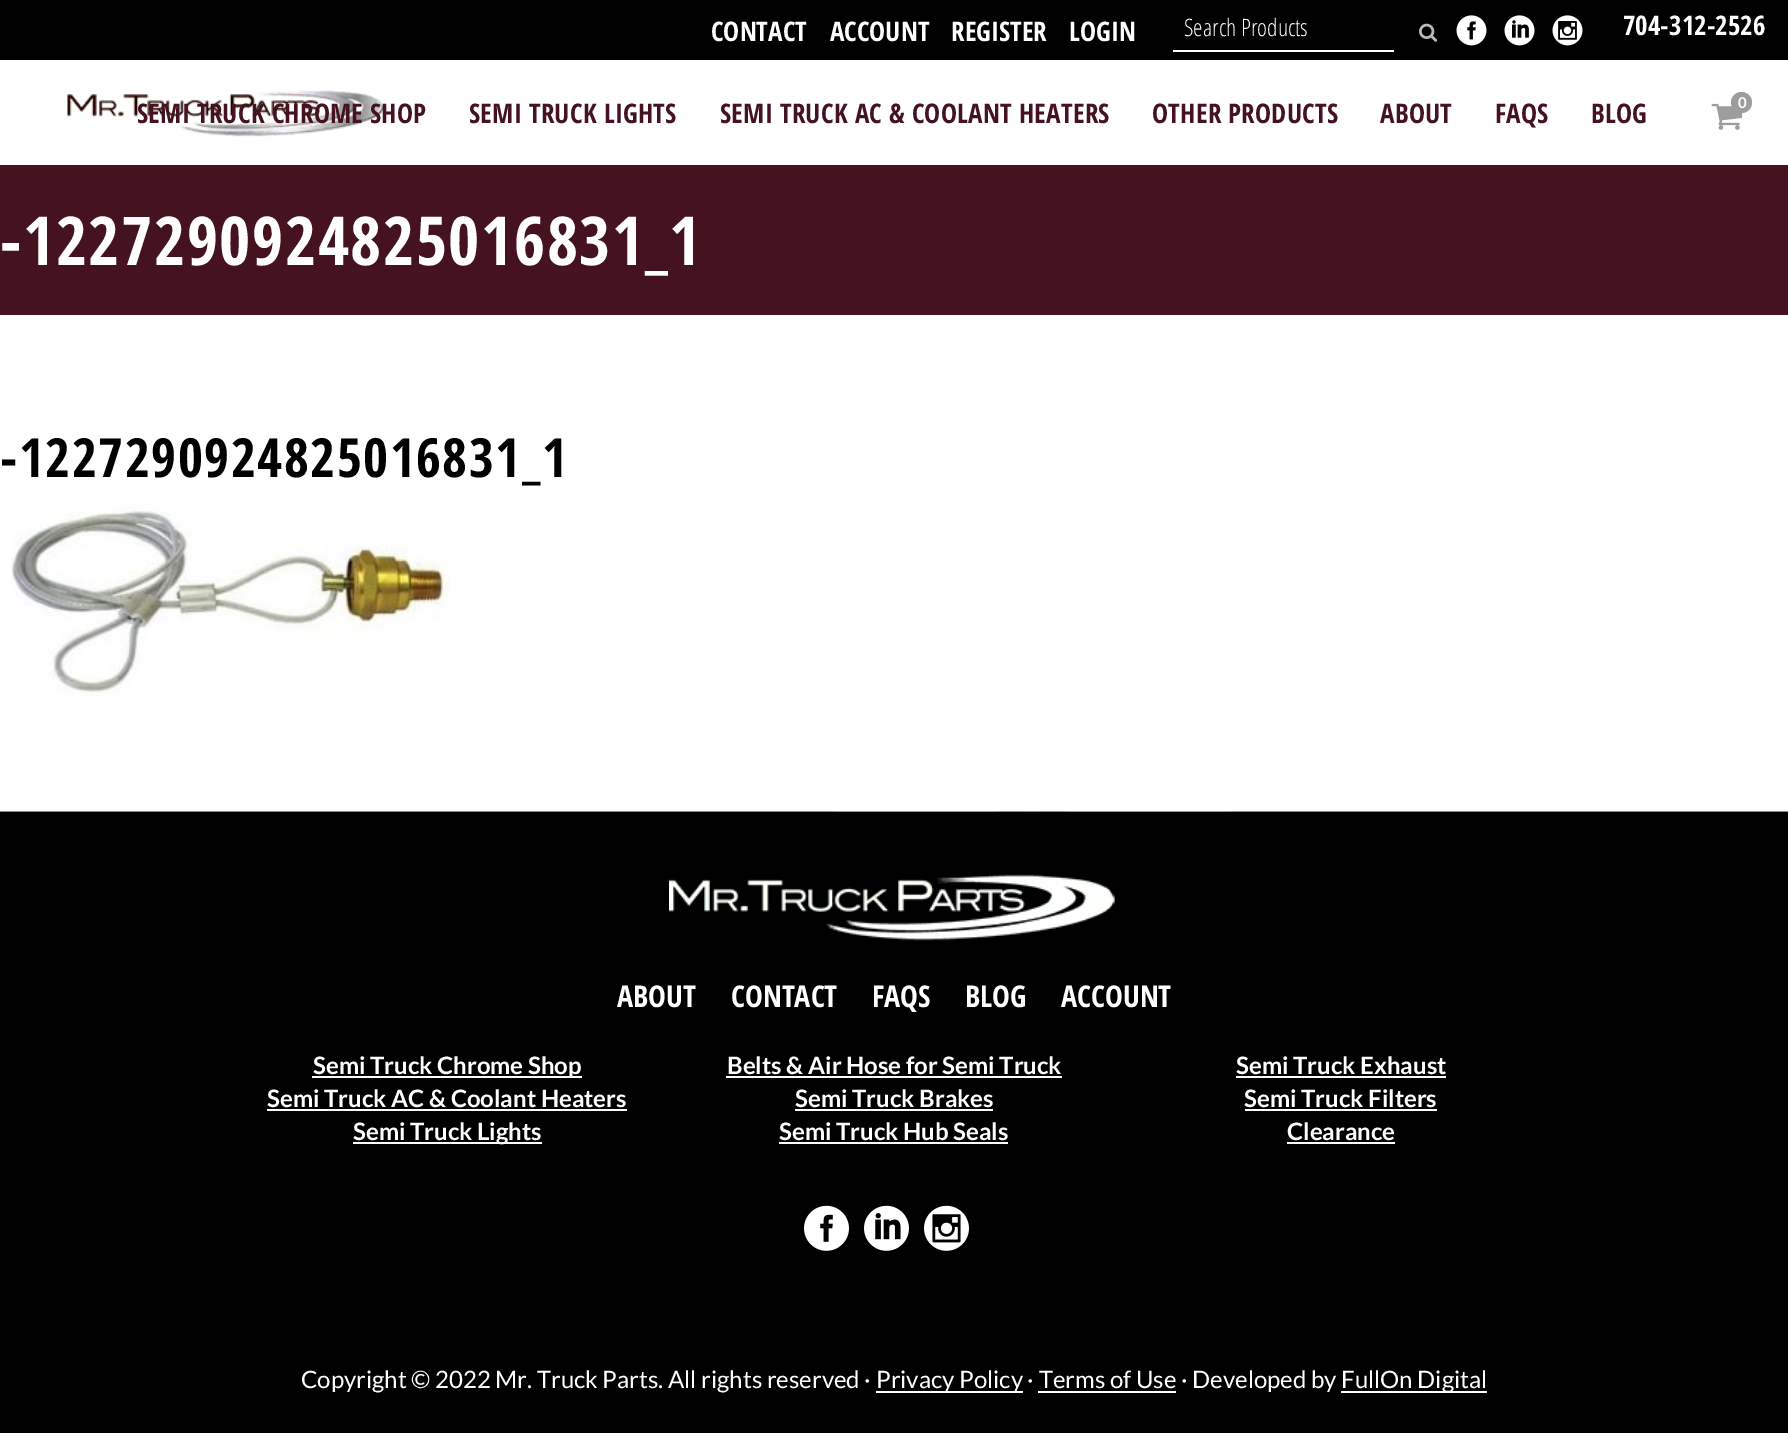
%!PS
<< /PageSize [1788 1433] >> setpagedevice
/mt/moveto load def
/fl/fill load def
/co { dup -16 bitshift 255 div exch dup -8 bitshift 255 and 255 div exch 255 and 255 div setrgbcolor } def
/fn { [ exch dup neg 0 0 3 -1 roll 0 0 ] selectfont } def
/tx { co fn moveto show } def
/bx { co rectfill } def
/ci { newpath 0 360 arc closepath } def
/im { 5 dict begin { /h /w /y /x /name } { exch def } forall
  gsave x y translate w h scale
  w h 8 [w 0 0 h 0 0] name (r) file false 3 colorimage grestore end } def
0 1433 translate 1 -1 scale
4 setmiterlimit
0 0 1788 1433 16#FFFFFF bx
0 0 1788 60 16#000000 bx
1173 50 221 2 16#FFFFFF bx
(media/1.raw) 1419 23 19 19 im
(media/2.raw) 1456 15 31 31 im
(media/3.raw) 1504 15 31 31 im
(media/4.raw) 1552 15 31 31 im
(media/5.raw) 67 90 318 47 im
(media/6.raw) 1711 103 32 27 im
16#9D9D9D co
1741.5 102.5 10.5 ci fl
0 165 1788 150 16#45131F bx
(media/7.raw) 11 498 439 198 im
(media/8.raw) 0 811 1788 1 im
0 812 1788 621 16#000000 bx
(media/9.raw) 669 874 446 67 im
312 1076 270 2 16#FFFFFF bx
726 1076 336 2 16#FFFFFF bx
1236 1076 210 2 16#FFFFFF bx
267 1109 360 2 16#FFFFFF bx
795 1109 198 2 16#FFFFFF bx
1245 1109 192 2 16#FFFFFF bx
353 1142 189 2 16#FFFFFF bx
779 1142 229 2 16#FFFFFF bx
1287 1142 108 2 16#FFFFFF bx
(media/10.raw) 804 1205 45 46 im
(media/11.raw) 864 1205 45 46 im
(media/12.raw) 924 1205 45 46 im
876 1391 147 2 16#FFFFFF bx
1341 1391 146 2 16#FFFFFF bx
1038 1391 138 2 16#FFFFFF bx
(CONTACT) 711 41 /OpenSansCondensed-Bold 27 16#FFFFFF tx
(ACCOUNT) 830 41 /OpenSansCondensed-Bold 27 16#FFFFFF tx
(REGISTER) 951 41 /OpenSansCondensed-Bold 27 16#FFFFFF tx
(LOGIN) 1069 41 /OpenSansCondensed-Bold 27 16#FFFFFF tx
(Search Products) 1184 36 /OpenSansCondensed-Light 24 16#FFFFFF tx
(704-312-2526) 1623 35 /OpenSansCondensed-Bold 27 16#FFFFFF tx
(0) 1738 108 /Lato-Bold 15 16#FFFFFF tx
/OpenSansCondensed-Bold 27 fn
16#45131F co
137 123 mt .25 0 (SEMI TRUCK CHROME SHOP) ashow
469 123 mt .25 0 (SEMI TRUCK LIGHTS) ashow
720 123 mt .25 0 (SEMI TRUCK AC & COOLANT HEATERS) ashow
1152 123 mt .25 0 (OTHER PRODUCTS) ashow
1380 123 mt .25 0 (ABOUT) ashow
1495 123 mt .25 0 (FAQS) ashow
1591 123 mt .25 0 (BLOG) ashow
/OpenSansCondensed-Bold 67.5 fn
16#FFFFFF co
0 265 mt 1.5 0 (-1227290924825016831_1) ashow
/OpenSansCondensed-Bold 54 fn
16#000000 co
0 477 mt 1.5 0 (-1227290924825016831_1) ashow
(ABOUT) 617 1007 /OpenSansCondensed-Bold 30 16#FFFFFF tx
(CONTACT) 731 1007 /OpenSansCondensed-Bold 30 16#FFFFFF tx
(FAQS) 872 1007 /OpenSansCondensed-Bold 30 16#FFFFFF tx
(BLOG) 965 1007 /OpenSansCondensed-Bold 30 16#FFFFFF tx
(ACCOUNT) 1061 1007 /OpenSansCondensed-Bold 30 16#FFFFFF tx
(Semi Truck Chrome Shop) 313 1074 /Lato-Bold 24 16#FFFFFF tx
(Belts & Air Hose for Semi Truck) 727 1074 /Lato-Bold 24 16#FFFFFF tx
(Semi Truck Exhaust) 1236 1074 /Lato-Bold 24 16#FFFFFF tx
(Semi Truck AC & Coolant Heaters) 267 1107 /Lato-Bold 24 16#FFFFFF tx
(Semi Truck Brakes) 795 1107 /Lato-Bold 24 16#FFFFFF tx
(Semi Truck Filters) 1244 1107 /Lato-Bold 24 16#FFFFFF tx
(Semi Truck Lights) 353 1140 /Lato-Bold 24 16#FFFFFF tx
(Semi Truck Hub Seals) 779 1140 /Lato-Bold 24 16#FFFFFF tx
(Clearance) 1287 1140 /Lato-Bold 24 16#FFFFFF tx
(Copyright © 2022 Mr. Truck Parts. All rights reserved ·) 301 1388 /Lato-Regular 24 16#FFFFFF tx
(Privacy Policy · Terms of Use · Developed by) 876 1388 /Lato-Regular 24 16#FFFFFF tx
(FullOn Digital) 1341 1388 /Lato-Regular 24 16#FFFFFF tx
showpage
